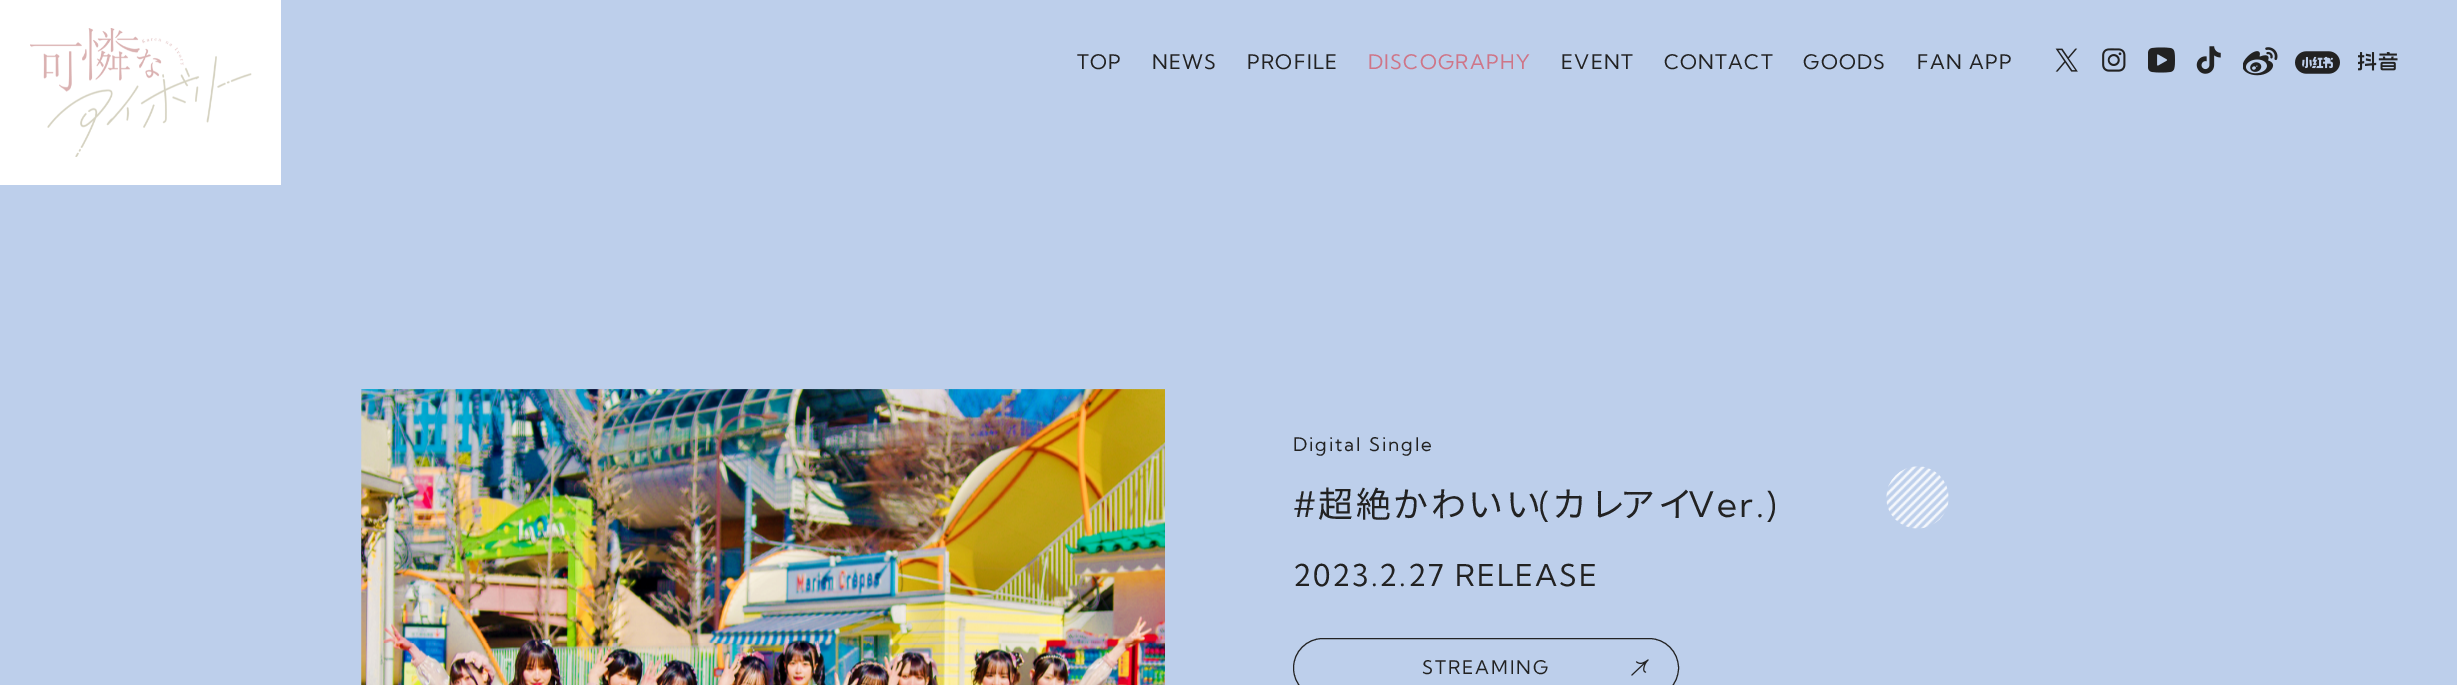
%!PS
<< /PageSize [2457 685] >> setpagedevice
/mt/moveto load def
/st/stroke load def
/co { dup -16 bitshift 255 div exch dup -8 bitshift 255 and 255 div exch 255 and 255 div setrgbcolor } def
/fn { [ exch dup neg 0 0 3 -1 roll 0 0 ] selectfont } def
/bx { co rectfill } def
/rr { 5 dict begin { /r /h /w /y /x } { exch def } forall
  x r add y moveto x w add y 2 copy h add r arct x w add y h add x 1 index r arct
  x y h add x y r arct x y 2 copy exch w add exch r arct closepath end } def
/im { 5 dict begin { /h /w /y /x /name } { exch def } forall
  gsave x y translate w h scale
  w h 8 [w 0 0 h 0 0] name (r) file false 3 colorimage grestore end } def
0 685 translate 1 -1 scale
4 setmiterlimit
0 0 2457 685 16#BDCFEB bx
0 0 281 185 16#FFFFFF bx
(media/1.raw) 30 28 222 129 im
(media/2.raw) 2055 48 23 24 im
(media/3.raw) 2102 48 24 24 im
(media/4.raw) 2148 47 27 26 im
(media/5.raw) 2196 46 25 28 im
(media/6.raw) 2243 47 35 29 im
(media/7.raw) 2295 51 45 23 im
(media/8.raw) 2358 52 40 19 im
(media/9.raw) 361 389 804 296 im
16#222222 co
1293.5 638.5 385 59 29.5 rr st
(media/10.raw) 1631 659 18 17 im
(media/11.raw) 1886 466 63 63 im
/KumbhSans-Regular 20 fn
1077 69 mt 1.25 0 (TOP) ashow
1152 69 mt 1.25 0 (NEWS) ashow
1247 69 mt 1.25 0 (PROFILE) ashow
16#CF7587 co
1368 69 mt 1.25 0 (DISCOGRAPHY) ashow
16#222222 co
1561 69 mt 1.25 0 (EVENT) ashow
1664 69 mt 1.25 0 (CONTACT) ashow
1803 69 mt 1.25 0 (GOODS) ashow
1917 69 mt 1.25 0 (FAN APP) ashow
/KumbhSans-Regular 18.75 fn
1293 451 mt 1.9 0 (Digital Single) ashow
/KumbhSans-Regular 35 fn
1293 517 mt 2.5 0 (#) ashow
/NotoSansJP-Regular 35 fn
1318 517 mt 2.5 0 (超絶かわいい) ashow
/KumbhSans-Regular 35 fn
1539 517 mt 2.5 0 (\() ashow
/NotoSansJP-Regular 35 fn
1552 517 mt 2.5 0 (カレ) ashow
1620 517 mt 2.5 0 (アイ) ashow
/KumbhSans-Regular 35 fn
1688 517 mt 2.5 0 (Ver.\)) ashow
/KumbhSans-Regular 30 fn
1293 586 mt 1.9 0 (2023.2.27 RELEASE) ashow
/KumbhSans-Regular 18.75 fn
1422 674 mt 1.9 0 (STREAMING) ashow
showpage
